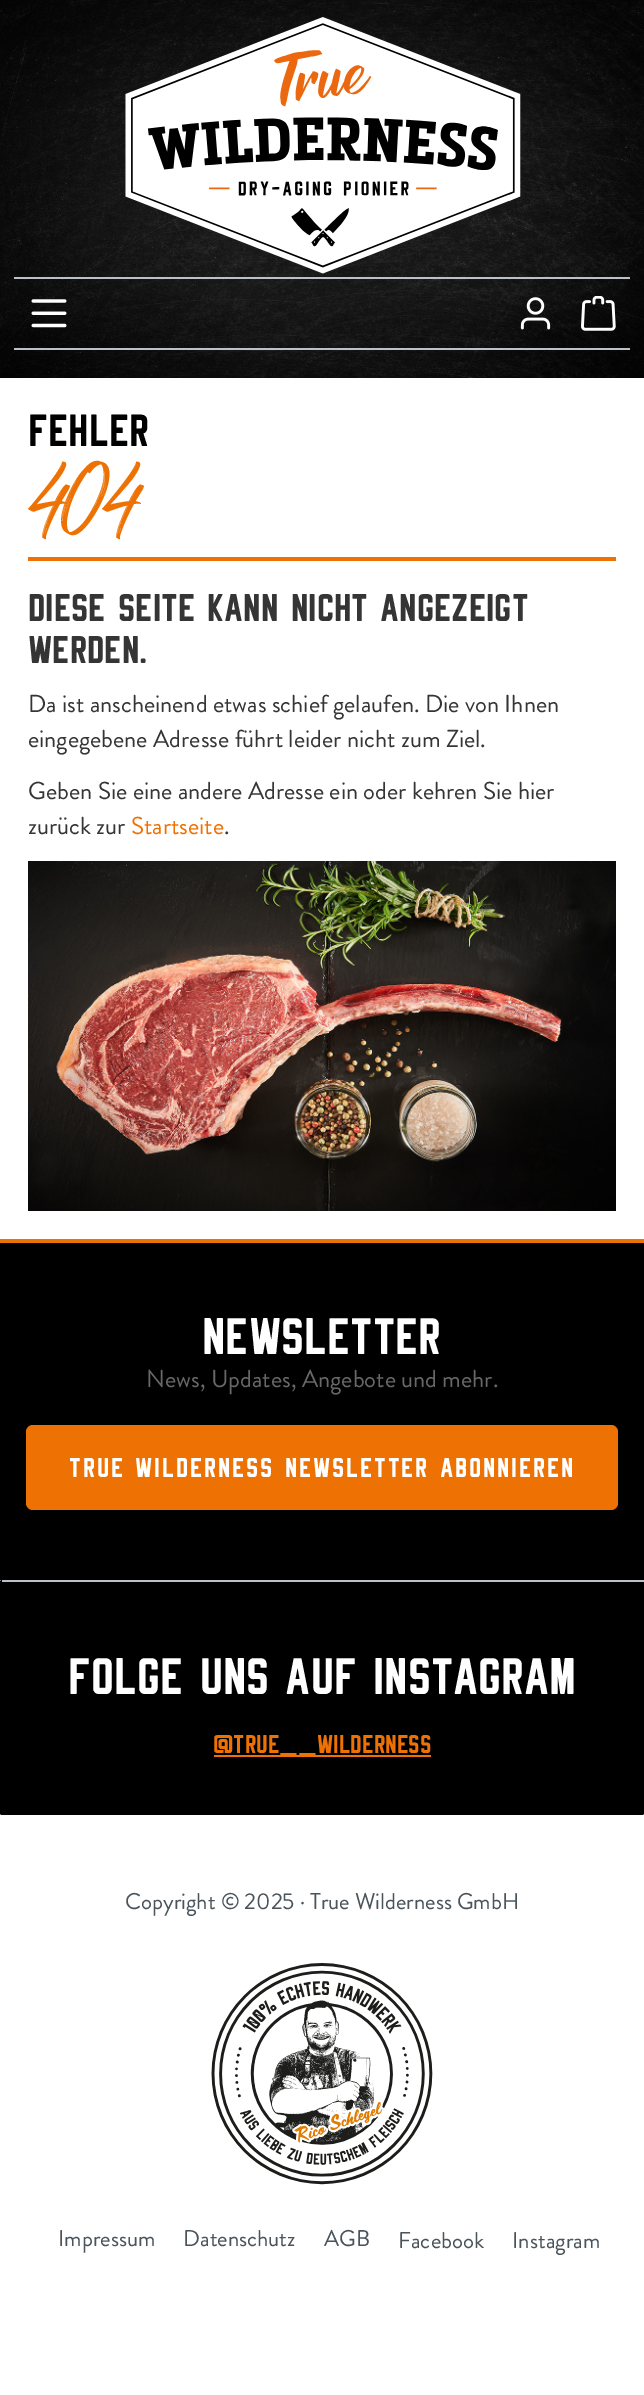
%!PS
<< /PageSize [644 2395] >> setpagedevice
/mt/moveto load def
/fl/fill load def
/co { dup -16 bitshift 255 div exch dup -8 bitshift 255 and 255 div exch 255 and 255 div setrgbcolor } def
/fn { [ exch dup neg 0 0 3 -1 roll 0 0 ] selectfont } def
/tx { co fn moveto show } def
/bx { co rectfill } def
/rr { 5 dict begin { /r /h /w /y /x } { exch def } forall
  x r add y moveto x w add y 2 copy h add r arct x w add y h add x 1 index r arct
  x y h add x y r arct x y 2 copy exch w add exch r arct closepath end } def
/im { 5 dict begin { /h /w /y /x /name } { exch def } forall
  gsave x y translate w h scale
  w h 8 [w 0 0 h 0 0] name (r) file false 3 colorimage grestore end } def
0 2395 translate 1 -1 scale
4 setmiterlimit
0 0 644 2395 16#FFFFFF bx
(media/1.raw) 0 0 644 378 im
(media/2.raw) 125 17 396 257 im
14 277 616 2 16#BCC1C7 bx
14 348 616 2 16#BCC1C7 bx
(media/3.raw) 520 297 31 33 im
(media/4.raw) 581 296 35 35 im
(media/5.raw) 31 299 36 29 im
28 557 588 4 16#EE7203 bx
(media/6.raw) 28 861 588 350 im
0 1243 644 337 16#000000 bx
0 1239 644 4 16#EE7203 bx
26 1425 592 85 7 rr fl
16#000000 co
0 1580 644 235 2 rr fl
2 1580 642 2 16#BCC1C7 bx
214 1755 217 2 16#EE7203 bx
(media/7.raw) 211 1963 222 222 im
(Fehler) 28 446 /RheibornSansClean-Regular 49 16#000000 tx
(404) 28 535 /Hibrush-Regular 105 16#EE7203 tx
(Diese Seite kann nicht angezeigt) 28 621 /RheibornSansClean-Regular 42 16#353535 tx
(werden.) 28 663 /RheibornSansClean-Regular 42 16#353535 tx
(Da ist anscheinend etwas schief gelaufen. Die von Ihnen) 28 712 /BrandonGrotesque-Regular 24.5 16#353535 tx
(eingegebene Adresse führt leider nicht zum Ziel.) 28 747 /BrandonGrotesque-Regular 24.5 16#353535 tx
(Geben Sie eine andere Adresse ein oder kehren Sie hier) 28 799 /BrandonGrotesque-Regular 24.5 16#353535 tx
(zurück zur) 28 834 /BrandonGrotesque-Regular 24.5 16#353535 tx
(Startseite) 131 834 /BrandonGrotesque-Regular 24.5 16#EE7203 tx
(.) 224 834 /BrandonGrotesque-Regular 24.5 16#353535 tx
(Newsletter) 202 1354 /RheibornSansClean-Regular 56 16#FFFFFF tx
(News, Updates, Angebote und mehr.) 146 1387 /BrandonGrotesque-Regular 24.5 16#686868 tx
/RheibornSansClean-Regular 29.75 fn
16#FFFFFF co
69 1477 mt 1.75 0 (True Wilderness Newsletter abonnieren) ashow
(Folge uns auf Instagram) 68 1694 /RheibornSansClean-Regular 56 16#FFFFFF tx
(@True__Wilderness) 213 1753 /RheibornSansClean-Regular 28 16#EE7203 tx
(Copyright © 2025 · True Wilderness GmbH) 125 1909 /BrandonGrotesque-Regular 22.75 16#4A545B tx
(Impressum) 58 2246 /BrandonGrotesque-Regular 22.75 16#4A545B tx
(Datenschutz) 183 2246 /BrandonGrotesque-Regular 22.75 16#4A545B tx
(AGB) 324 2246 /BrandonGrotesque-Regular 22.75 16#4A545B tx
(Facebook) 398 2248 /BrandonGrotesque-Regular 22.75 16#4A545B tx
(Instagram) 512 2248 /BrandonGrotesque-Regular 22.75 16#4A545B tx
showpage
